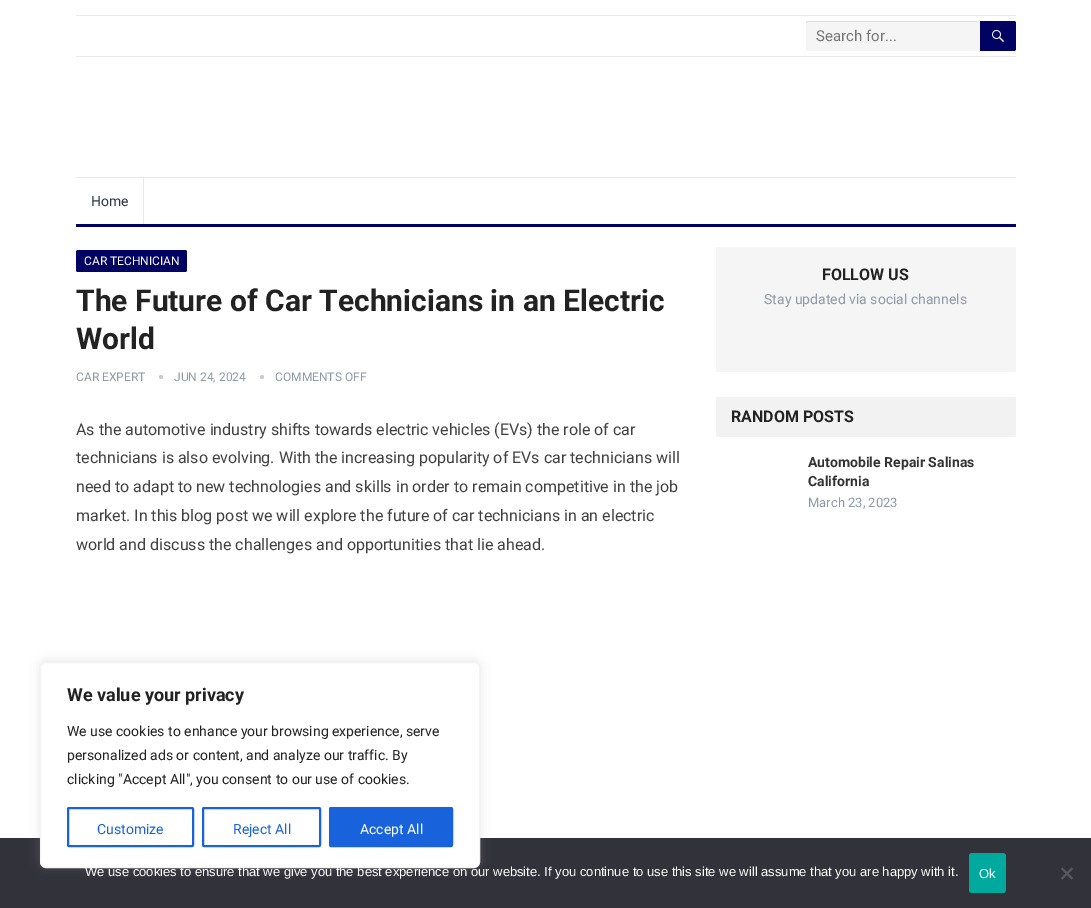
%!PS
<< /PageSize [1091 908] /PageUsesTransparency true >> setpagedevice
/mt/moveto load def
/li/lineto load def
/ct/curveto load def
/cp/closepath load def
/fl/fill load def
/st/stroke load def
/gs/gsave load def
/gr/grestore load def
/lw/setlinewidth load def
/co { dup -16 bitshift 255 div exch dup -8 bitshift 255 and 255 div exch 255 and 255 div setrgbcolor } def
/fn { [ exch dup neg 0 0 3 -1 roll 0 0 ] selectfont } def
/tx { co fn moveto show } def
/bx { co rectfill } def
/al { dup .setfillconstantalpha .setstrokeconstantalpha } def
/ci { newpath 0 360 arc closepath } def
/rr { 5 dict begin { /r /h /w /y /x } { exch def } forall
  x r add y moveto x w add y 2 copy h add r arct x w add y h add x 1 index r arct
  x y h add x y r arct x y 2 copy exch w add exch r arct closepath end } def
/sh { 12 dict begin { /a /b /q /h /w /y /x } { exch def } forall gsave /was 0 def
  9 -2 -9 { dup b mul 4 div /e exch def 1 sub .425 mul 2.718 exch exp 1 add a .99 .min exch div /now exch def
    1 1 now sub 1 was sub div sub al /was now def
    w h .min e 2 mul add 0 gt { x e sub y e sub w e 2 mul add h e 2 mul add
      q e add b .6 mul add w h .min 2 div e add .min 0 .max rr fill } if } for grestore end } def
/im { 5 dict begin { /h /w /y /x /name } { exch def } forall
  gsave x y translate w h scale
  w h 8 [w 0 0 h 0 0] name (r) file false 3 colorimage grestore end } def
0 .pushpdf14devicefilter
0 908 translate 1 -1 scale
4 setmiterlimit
0 0 1091 908 16#FFFFFF bx
76 15 940 1 16#E9E9E9 bx
76 56 940 1 16#E9E9E9 bx
16#F5F5F5 co
808 21 mt 1016 21 li 1016 51 li 808 51 li 807 51 806 50 806 49 ct 806 23 li 806 22 807 21 808 21 ct cp fl
16#DDDDDD co
808 22 mt 1016 22 li 1016 21 li 808 21 li 806 21 806 23 806 24 ct 806 23 807 22 808 22 ct cp fl
16#020263 co
980 21 mt 1014 21 li 1015 21 1016 22 1016 23 ct 1016 49 li 1016 50 1015 51 1014 51 ct 980 51 li cp fl
(media/1.raw) 992 30 12 12 im
76 177 940 1 16#E9E9E9 bx
76 224 940 3 16#020263 bx
143 178 1 46 16#E9E9E9 bx
16#020263 co
76 250 111 22 2 rr fl
16#CCCCCC co
161 377 2 ci fl
262 377 2 ci fl
16#F5F5F5 co
716 247 300 125 2 rr fl
16#F2F2F2 co
716 397 300 40 2 rr fl
0 838 1091 70 16#32323A bx
16#ACABAB co
40 661 440 206 6 5 .3 sh
16#FFFFFF co
40.5 662.5 439 205 5.5 rr gs fl gr
16#F4F4F4 co
st
16#1863DC co
2 lw
68 808 125 38 1 rr st
203 808 117 38 1 rr st
330 808 122 38 1 rr gs fl gr
st
16#00A99D co
969 853 37 40 3 rr fl
16#59595D co
1071.5 867.5 mt 1073 869 li 1062.5 879.5 li 1061 878 li cp fl
1061 869 mt 1062.5 867.5 li 1073 878 li 1071.5 879.5 li cp fl
(Search for...) 816 41 /Roboto-Regular 15 16#757575 tx
(Home) 91 206 /Roboto-Regular 14 16#2C3644 tx
(CAR TECHNICIAN) 84 265 /Roboto-Regular 12 16#FFFFFF tx
(The Future of Car Technicians in an Electric) 76 311 /Roboto-Bold 30 16#222222 tx
(World) 76 349 /Roboto-Bold 30 16#222222 tx
(CAR EXPERT) 76 381 /Roboto-Regular 12 16#8E99A9 tx
(JUN 24, 2024) 174 381 /Roboto-Regular 12 16#8E99A9 tx
(COMMENTS OFF) 275 381 /Roboto-Regular 12 16#8E99A9 tx
(As the automotive industry shifts towards electric vehicles \(EVs\) the role of car) 76 435 /Roboto-Regular 16 16#414141 tx
(technicians is also evolving. With the increasing popularity of EVs car technicians will) 76 463 /Roboto-Regular 16 16#414141 tx
(need to adapt to new technologies and skills in order to remain competitive in the job) 76 492 /Roboto-Regular 16 16#414141 tx
(market. In this blog post we will explore the future of car technicians in an electric) 76 521 /Roboto-Regular 16 16#414141 tx
(world and discuss the challenges and opportunities that lie ahead.) 76 550 /Roboto-Regular 16 16#414141 tx
(FOLLOW US) 822 280 /Roboto-Bold 16 16#222222 tx
(Stay updated via social channels) 764 304 /Roboto-Regular 14 16#8E99A9 tx
(RANDOM POSTS) 731 422 /Roboto-Bold 16 16#222222 tx
(Automobile Repair Salinas) 808 467 /Roboto-Bold 14 16#333333 tx
(California) 808 486 /Roboto-Bold 14 16#333333 tx
(March 23, 2023) 808 507 /Roboto-Regular 13 16#8E99A9 tx
(We value your privacy) 67 701 /Roboto-Bold 18 16#222222 tx
(We use cookies to enhance your browsing experience, serve) 67 736 /Roboto-Regular 14 16#222222 tx
(personalized ads or content, and analyze our traffic. By) 67 760 /Roboto-Regular 14 16#222222 tx
(clicking "Accept All", you consent to our use of cookies.) 67 784 /Roboto-Regular 14 16#222222 tx
(Customize) 97 834 /Roboto-Regular 14 16#1863DC tx
(Reject All) 233 834 /Roboto-Regular 14 16#1863DC tx
(Accept All) 360 834 /Roboto-Regular 14 16#FFFFFF tx
(We use cookies to ensure that we give you the best experience on our website. If you continue to use this site we will assume that you are happy with it.) 85 876 /LiberationSans-Regular 13 16#FFFFFF tx
(Ok) 979 878 /LiberationSans-Regular 13 16#FFFFFF tx
.poppdf14devicefilter showpage
